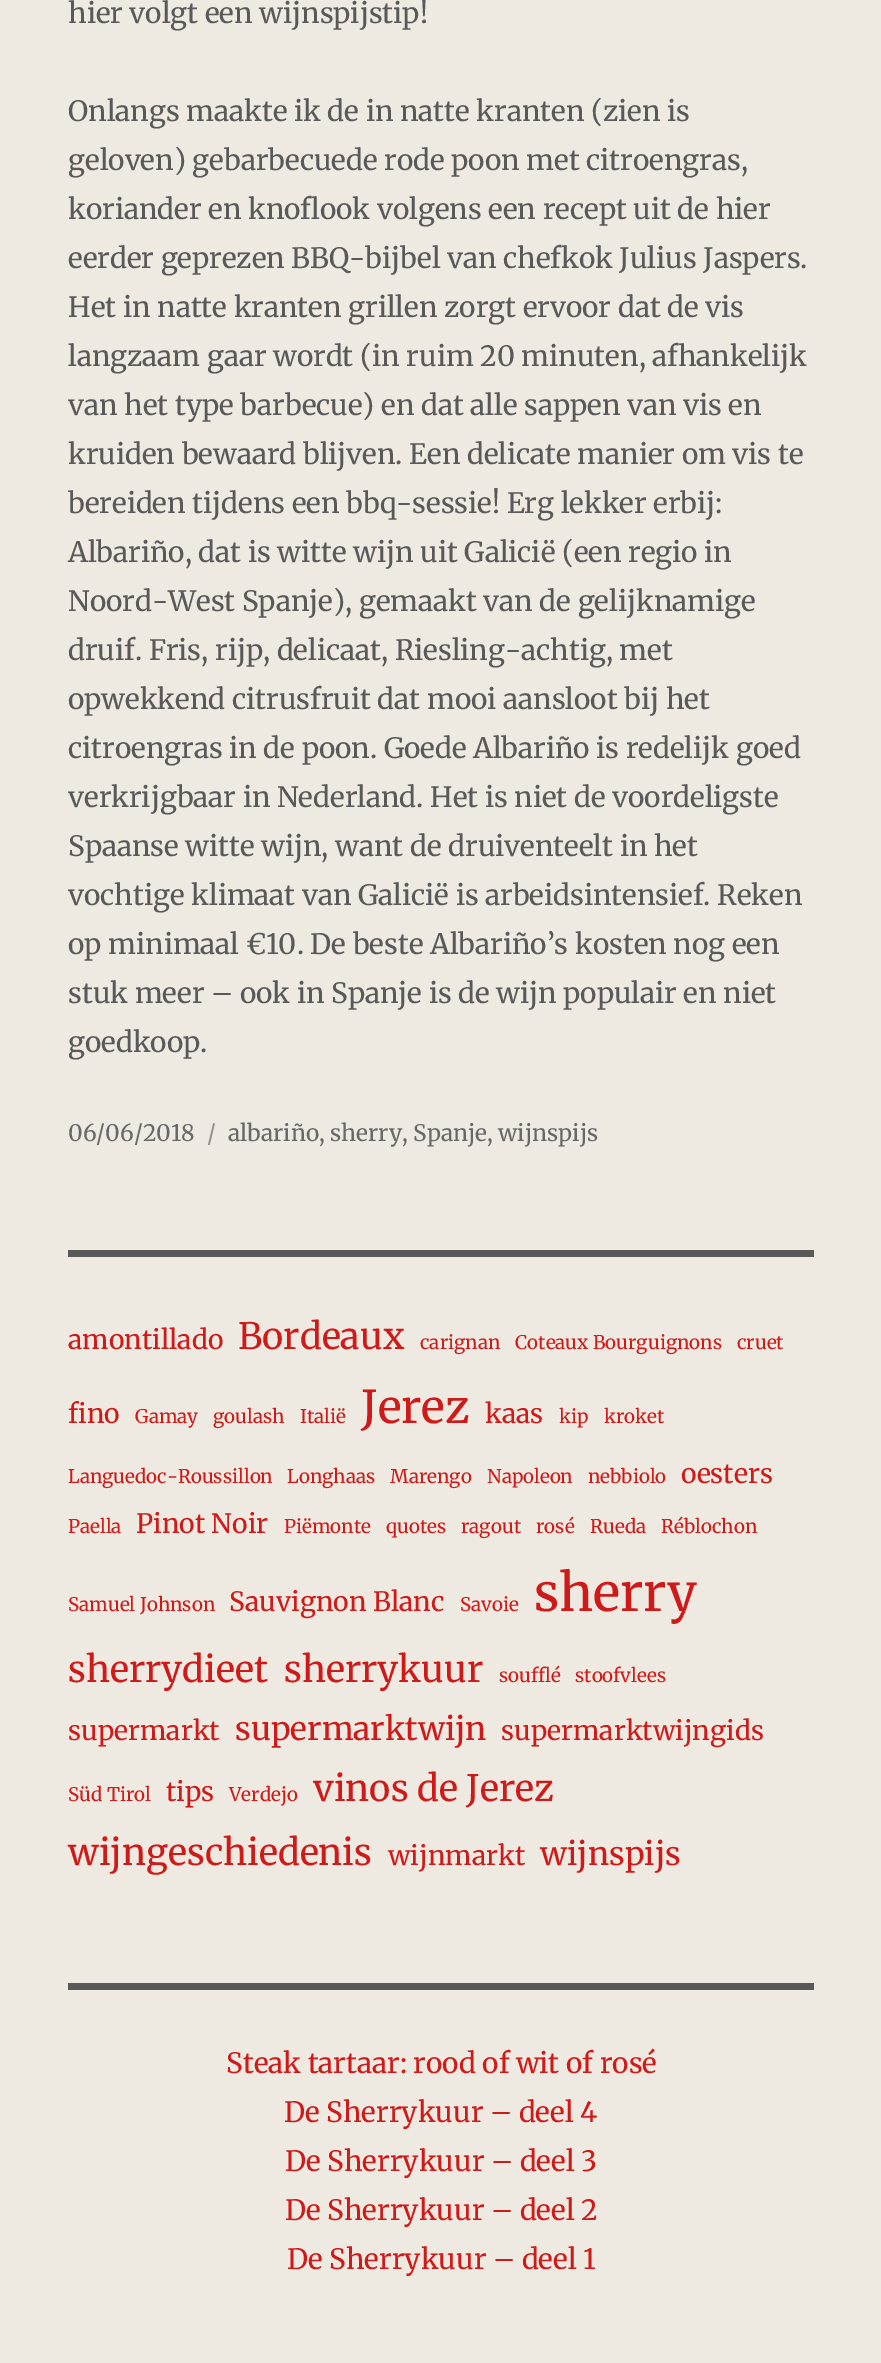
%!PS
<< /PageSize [881 2363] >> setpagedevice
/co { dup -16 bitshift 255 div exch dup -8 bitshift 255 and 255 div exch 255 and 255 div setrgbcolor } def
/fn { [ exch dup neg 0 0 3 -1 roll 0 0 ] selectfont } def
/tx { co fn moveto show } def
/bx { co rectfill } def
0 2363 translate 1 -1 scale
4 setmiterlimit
0 0 881 2363 16#EEE9E1 bx
68 1250 746 7 16#595959 bx
68 1983 746 7 16#595959 bx
(hier volgt een wijnspijstip!) 68 23 /Merriweather-Regular 28 16#595959 tx
(Onlangs maakte ik de in natte kranten \(zien is) 68 121 /Merriweather-Regular 28 16#595959 tx
(geloven\) gebarbecuede rode poon met citroengras,) 68 170 /Merriweather-Regular 28 16#595959 tx
(koriander en knoflook volgens een recept uit de hier) 68 219 /Merriweather-Regular 28 16#595959 tx
(eerder geprezen BBQ-bijbel van chefkok Julius Jaspers.) 68 268 /Merriweather-Regular 28 16#595959 tx
(Het in natte kranten grillen zorgt ervoor dat de vis) 68 317 /Merriweather-Regular 28 16#595959 tx
(langzaam gaar wordt \(in ruim 20 minuten, afhankelijk) 68 366 /Merriweather-Regular 28 16#595959 tx
(van het type barbecue\) en dat alle sappen van vis en) 68 415 /Merriweather-Regular 28 16#595959 tx
(kruiden bewaard blijven. Een delicate manier om vis te) 68 464 /Merriweather-Regular 28 16#595959 tx
(bereiden tijdens een bbq-sessie! Erg lekker erbij:) 68 513 /Merriweather-Regular 28 16#595959 tx
(Albariño, dat is witte wijn uit Galicië \(een regio in) 68 562 /Merriweather-Regular 28 16#595959 tx
(Noord-West Spanje\), gemaakt van de gelijknamige) 68 611 /Merriweather-Regular 28 16#595959 tx
(druif. Fris, rijp, delicaat, Riesling-achtig, met) 68 660 /Merriweather-Regular 28 16#595959 tx
(opwekkend citrusfruit dat mooi aansloot bij het) 68 709 /Merriweather-Regular 28 16#595959 tx
(citroengras in de poon. Goede Albariño is redelijk goed) 68 758 /Merriweather-Regular 28 16#595959 tx
(verkrijgbaar in Nederland. Het is niet de voordeligste) 68 807 /Merriweather-Regular 28 16#595959 tx
(Spaanse witte wijn, want de druiventeelt in het) 68 856 /Merriweather-Regular 28 16#595959 tx
(vochtige klimaat van Galicië is arbeidsintensief. Reken) 68 905 /Merriweather-Regular 28 16#595959 tx
(op minimaal €10. De beste Albariño’s kosten nog een) 68 954 /Merriweather-Regular 28 16#595959 tx
(stuk meer – ook in Spanje is de wijn populair en niet) 68 1003 /Merriweather-Regular 28 16#595959 tx
(goedkoop.) 68 1052 /Merriweather-Regular 28 16#595959 tx
(06/06/2018) 68 1141 /Merriweather-Regular 22.75 16#686868 tx
(/) 207 1141 /Merriweather-Regular 22.75 16#908F8C tx
(albariño, sherry, Spanje, wijnspijs) 228 1141 /Merriweather-Regular 22.75 16#686868 tx
(amontillado) 68 1349 /Merriweather-Regular 26.6 16#CF1A1A tx
(Bordeaux) 238 1349 /Merriweather-Regular 36.25 16#CF1A1A tx
(carignan) 420 1349 /Merriweather-Regular 18.75 16#CF1A1A tx
(Coteaux Bourguignons) 515 1349 /Merriweather-Regular 18.75 16#CF1A1A tx
(cruet) 737 1349 /Merriweather-Regular 18.75 16#CF1A1A tx
(fino) 68 1423 /Merriweather-Regular 26.6 16#CF1A1A tx
(Gamay) 135 1423 /Merriweather-Regular 18.75 16#CF1A1A tx
(goulash) 213 1423 /Merriweather-Regular 18.75 16#CF1A1A tx
(Italië) 300 1423 /Merriweather-Regular 18.75 16#CF1A1A tx
(Jerez) 361 1423 /Merriweather-Regular 45 16#CF1A1A tx
(kaas) 485 1423 /Merriweather-Regular 26.6 16#CF1A1A tx
(kip) 559 1423 /Merriweather-Regular 18.75 16#CF1A1A tx
(kroket) 604 1423 /Merriweather-Regular 18.75 16#CF1A1A tx
(Languedoc-Roussillon) 68 1483 /Merriweather-Regular 18.75 16#CF1A1A tx
(Longhaas) 287 1483 /Merriweather-Regular 18.75 16#CF1A1A tx
(Marengo) 390 1483 /Merriweather-Regular 18.75 16#CF1A1A tx
(Napoleon) 487 1483 /Merriweather-Regular 18.75 16#CF1A1A tx
(nebbiolo) 588 1483 /Merriweather-Regular 18.75 16#CF1A1A tx
(oesters) 681 1483 /Merriweather-Regular 26.6 16#CF1A1A tx
(Paella) 68 1533 /Merriweather-Regular 18.75 16#CF1A1A tx
(Pinot Noir) 136 1533 /Merriweather-Regular 26.6 16#CF1A1A tx
(Piëmonte) 284 1533 /Merriweather-Regular 18.75 16#CF1A1A tx
(quotes) 386 1533 /Merriweather-Regular 18.75 16#CF1A1A tx
(ragout) 461 1533 /Merriweather-Regular 18.75 16#CF1A1A tx
(rosé) 536 1533 /Merriweather-Regular 18.75 16#CF1A1A tx
(Rueda) 590 1533 /Merriweather-Regular 18.75 16#CF1A1A tx
(Réblochon) 661 1533 /Merriweather-Regular 18.75 16#CF1A1A tx
(Samuel Johnson) 68 1611 /Merriweather-Regular 18.75 16#CF1A1A tx
(Sauvignon Blanc) 229 1611 /Merriweather-Regular 26.6 16#CF1A1A tx
(Savoie) 460 1611 /Merriweather-Regular 18.75 16#CF1A1A tx
(sherry) 534 1611 /Merriweather-Regular 51.5 16#CF1A1A tx
(sherrydieet) 68 1682 /Merriweather-Regular 36.25 16#CF1A1A tx
(sherrykuur) 284 1682 /Merriweather-Regular 36.25 16#CF1A1A tx
(soufflé) 499 1682 /Merriweather-Regular 18.75 16#CF1A1A tx
(stoofvlees) 575 1682 /Merriweather-Regular 18.75 16#CF1A1A tx
(supermarkt) 68 1740 /Merriweather-Regular 26.6 16#CF1A1A tx
(supermarktwijn) 235 1740 /Merriweather-Regular 32 16#CF1A1A tx
(supermarktwijngids) 501 1740 /Merriweather-Regular 26.6 16#CF1A1A tx
(Süd Tirol) 68 1801 /Merriweather-Regular 18.75 16#CF1A1A tx
(tips) 166 1801 /Merriweather-Regular 26.6 16#CF1A1A tx
(Verdejo) 229 1801 /Merriweather-Regular 18.75 16#CF1A1A tx
(vinos de Jerez) 313 1801 /Merriweather-Regular 36.25 16#CF1A1A tx
(wijngeschiedenis) 68 1865 /Merriweather-Regular 36.25 16#CF1A1A tx
(wijnmarkt) 388 1865 /Merriweather-Regular 26.6 16#CF1A1A tx
(wijnspijs) 540 1865 /Merriweather-Regular 32 16#CF1A1A tx
(Steak tartaar: rood of wit of rosé) 226 2073 /Merriweather-Regular 28 16#CF1A1A tx
(De Sherrykuur – deel 4) 284 2122 /Merriweather-Regular 28 16#CF1A1A tx
(De Sherrykuur – deel 3) 285 2171 /Merriweather-Regular 28 16#CF1A1A tx
(De Sherrykuur – deel 2) 285 2220 /Merriweather-Regular 28 16#CF1A1A tx
(De Sherrykuur – deel 1) 287 2269 /Merriweather-Regular 28 16#CF1A1A tx
showpage
